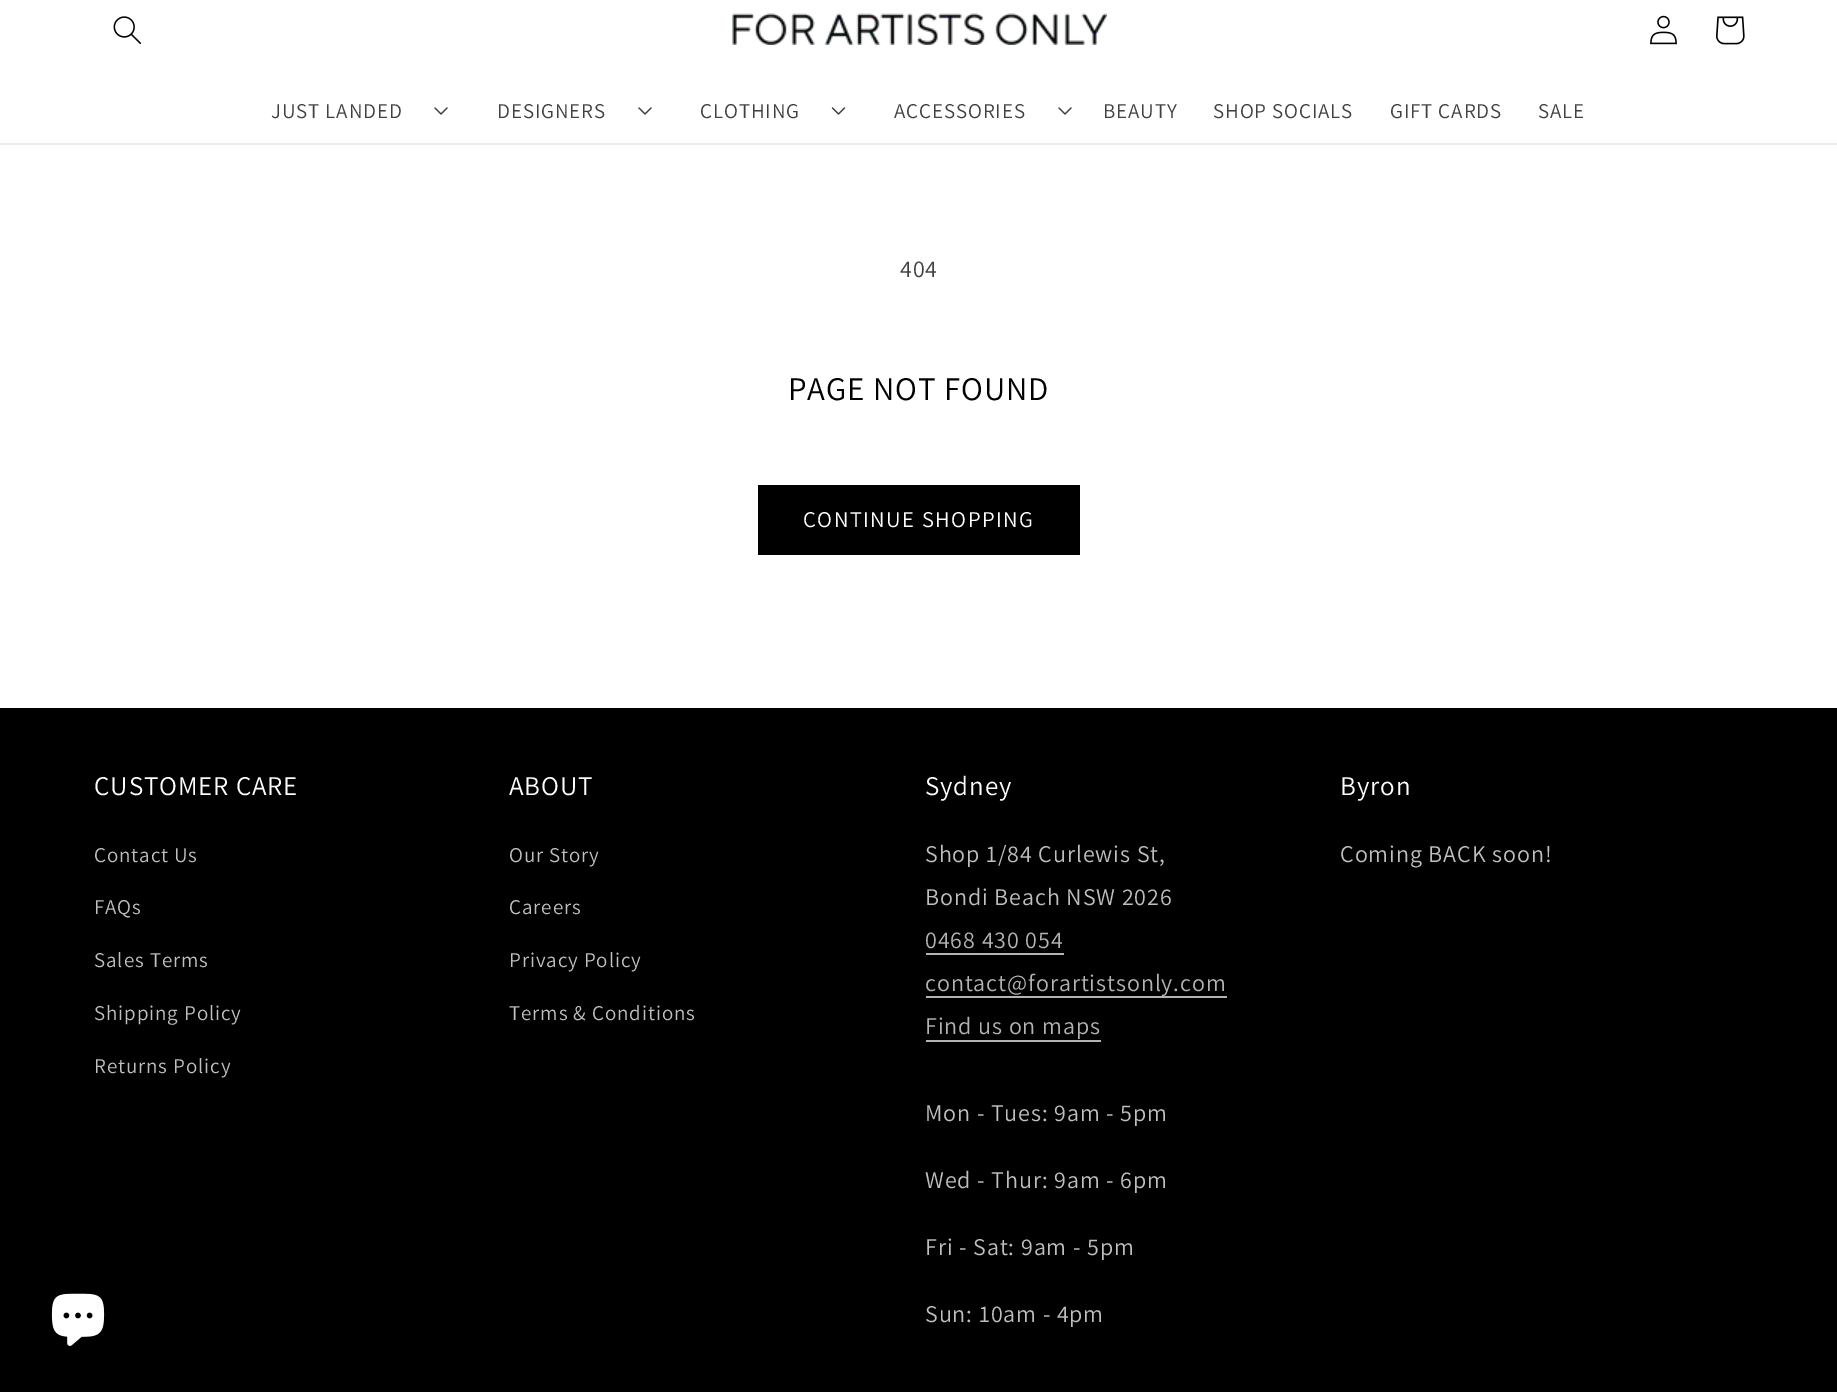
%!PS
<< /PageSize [1837 1392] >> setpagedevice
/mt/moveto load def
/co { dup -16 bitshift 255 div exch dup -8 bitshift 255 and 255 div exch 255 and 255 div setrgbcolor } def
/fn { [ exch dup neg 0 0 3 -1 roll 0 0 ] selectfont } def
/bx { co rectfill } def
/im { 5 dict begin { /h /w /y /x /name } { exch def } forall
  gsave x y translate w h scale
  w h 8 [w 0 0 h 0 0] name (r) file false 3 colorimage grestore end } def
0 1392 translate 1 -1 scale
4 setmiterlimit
0 0 1837 1392 16#FFFFFF bx
0 143 1837 2 16#EBEBEB bx
(media/1.raw) 113 16 28 28 im
(media/2.raw) 732 13 375 32 im
(media/3.raw) 1650 15 27 30 im
(media/4.raw) 1716 16 29 29 im
(media/5.raw) 434 107 14 8 im
(media/5.raw) 638 107 14 8 im
(media/6.raw) 831 107 15 8 im
(media/5.raw) 1058 107 14 8 im
758 485 322 70 16#000000 bx
0 708 1837 684 16#000000 bx
(media/7.raw) 51 1293 54 53 im
926 953 138 2 16#B3B3B3 bx
926 996 301 2 16#B3B3B3 bx
926 1040 175 2 16#B3B3B3 bx
/Assistant-Regular 21 fn
16#404040 co
271 118 mt .9 0 (JUST LANDED) ashow
497 118 mt .9 0 (DESIGNERS) ashow
700 118 mt .9 0 (CLOTHING) ashow
894 118 mt .9 0 (ACCESSORIES) ashow
1103 118 mt .9 0 (BEAUTY) ashow
1213 118 mt .9 0 (SHOP SOCIALS) ashow
1390 118 mt .9 0 (GIFT CARDS) ashow
1538 118 mt .9 0 (SALE) ashow
/Assistant-Regular 24 fn
900 277 mt .9 0 (404) ashow
/Assistant-Regular 33 fn
16#000000 co
788 400 mt .9 0 (PAGE NOT FOUND) ashow
/Assistant-Regular 22.5 fn
16#FFFFFF co
803 527 mt 1.5 0 (CONTINUE SHOPPING) ashow
/Assistant-Regular 27 fn
94 795 mt .9 0 (CUSTOMER CARE) ashow
/Assistant-Regular 21 fn
16#BFBFBF co
94 862 mt .9 0 (Contact Us) ashow
94 914 mt .9 0 (FAQs) ashow
94 967 mt .9 0 (Sales Terms) ashow
94 1020 mt .9 0 (Shipping Policy) ashow
94 1073 mt .9 0 (Returns Policy) ashow
/Assistant-Regular 27 fn
16#FFFFFF co
509 795 mt .9 0 (ABOUT) ashow
/Assistant-Regular 21 fn
16#BFBFBF co
509 862 mt .9 0 (Our Story) ashow
509 914 mt .9 0 (Careers) ashow
509 967 mt .9 0 (Privacy Policy) ashow
509 1020 mt .9 0 (Terms & Conditions) ashow
/Assistant-Regular 27 fn
16#FFFFFF co
925 795 mt .9 0 (Sydney) ashow
/Assistant-Regular 24 fn
16#BFBFBF co
925 862 mt .9 0 (Shop 1/84 Curlewis St,) ashow
925 905 mt .9 0 (Bondi Beach NSW 2026) ashow
16#B3B3B3 co
925 948 mt .9 0 (0468 430 054) ashow
925 991 mt .9 0 (contact@forartistsonly.com) ashow
925 1034 mt .9 0 (Find us on maps) ashow
16#BFBFBF co
925 1121 mt .9 0 (Mon - Tues: 9am - 5pm) ashow
925 1188 mt .9 0 (Wed - Thur: 9am - 6pm) ashow
925 1255 mt .9 0 (Fri - Sat: 9am - 5pm) ashow
925 1322 mt .9 0 (Sun: 10am - 4pm) ashow
/Assistant-Regular 27 fn
16#FFFFFF co
1340 795 mt .9 0 (Byron) ashow
/Assistant-Regular 24 fn
16#BFBFBF co
1340 862 mt .9 0 (Coming BACK soon!) ashow
showpage
